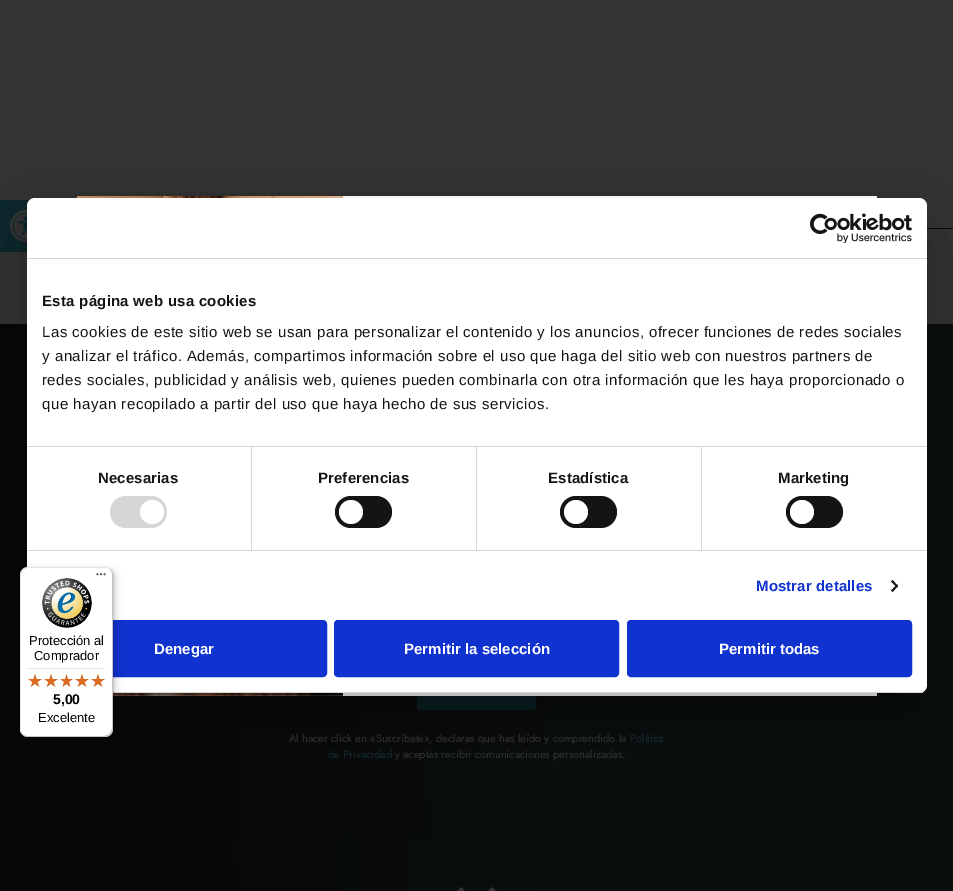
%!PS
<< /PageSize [953 891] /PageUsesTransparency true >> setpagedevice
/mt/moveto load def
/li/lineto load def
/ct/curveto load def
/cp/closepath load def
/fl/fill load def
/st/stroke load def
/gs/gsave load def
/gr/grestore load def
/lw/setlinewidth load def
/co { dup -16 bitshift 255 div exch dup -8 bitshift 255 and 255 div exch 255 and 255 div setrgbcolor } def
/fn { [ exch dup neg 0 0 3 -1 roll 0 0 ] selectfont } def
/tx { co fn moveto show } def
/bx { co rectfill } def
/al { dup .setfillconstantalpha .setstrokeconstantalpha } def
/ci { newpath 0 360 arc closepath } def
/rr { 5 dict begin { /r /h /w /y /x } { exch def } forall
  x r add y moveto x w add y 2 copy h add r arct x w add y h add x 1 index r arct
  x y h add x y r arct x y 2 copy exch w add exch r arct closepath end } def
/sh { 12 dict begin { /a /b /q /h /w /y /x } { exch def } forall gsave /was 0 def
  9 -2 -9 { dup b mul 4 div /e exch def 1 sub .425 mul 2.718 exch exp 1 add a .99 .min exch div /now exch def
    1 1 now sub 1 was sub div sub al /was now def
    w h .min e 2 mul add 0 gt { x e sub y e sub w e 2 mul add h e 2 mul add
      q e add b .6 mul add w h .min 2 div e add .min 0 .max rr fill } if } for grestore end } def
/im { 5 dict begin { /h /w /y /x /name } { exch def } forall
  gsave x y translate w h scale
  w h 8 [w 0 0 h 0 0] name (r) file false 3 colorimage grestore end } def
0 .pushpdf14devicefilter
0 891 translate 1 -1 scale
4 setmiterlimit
0 0 953 891 16#333333 bx
0 200 30 52 16#0C272D bx
(media/1.raw) 10 210 17 32 im
gs 0 324 mt 953 324 li 953 837 li 0 837 li cp clip newpath
<< /ShadingType 2 /ColorSpace /DeviceRGB /Coords [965 555 -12 606] /Extend [true true] /Function << /FunctionType 3 /Domain [0 1] /Functions [<< /FunctionType 2 /Domain [0 1] /C0 [.043 .055 .055] /C1 [.043 .055 .055] /N 1 >> << /FunctionType 2 /Domain [0 1] /C0 [.043 .055 .055] /C1 [.024 .024 .024] /N 1 >>] /Bounds [.41] /Encode [0 1 0 1] >> >> shfill gr
0.8 al
417 670 119 40 3 rr fl
1 al
16#000000 co
76 201 806 506 0 11.5 .2 sh
113 196 764 500 16#FFFFFF bx
(media/2.raw) 77 196 266 500 im
927 228 26 1 16#0A0A0A bx
16#000000 co
27 230 900 495 8 34 .3 sh
16#FFFFFF co
27 198 900 495 8 rr fl
27 258 900 1 16#D6D6D6 bx
(media/3.raw) 810 213 102 30 im
27 446 900 1 16#D6D6D6 bx
27 550 900 1 16#D6D6D6 bx
251 447 1 103 16#D6D6D6 bx
110 496 57 32 16 rr fl
16#FFFFFF co
152 512 12 ci fl
476 447 1 103 16#D6D6D6 bx
16#141414 co
335 496 57 32 16 rr fl
16#FFFFFF co
351 512 12 ci fl
701 447 1 103 16#D6D6D6 bx
16#141414 co
560 496 57 32 16 rr fl
16#FFFFFF co
576 512 12 ci fl
16#141414 co
786 496 57 32 16 rr fl
16#FFFFFF co
802 512 12 ci fl
16#141414 co
892.5 580 mt 898 586 li 897 587.5 li 891 581.5 li cp fl
897 584.5 mt 898 586 li 892.5 592 li 891 590.5 li cp fl
gs
27 198 900 495 8 rr clip newpath
113 692 814 1 16#D6D6D6 bx
gr
16#1032CF co
43 621 283 55 3 rr gs fl gr
2 lw
st
335 621 283 55 3 rr gs fl gr
st
628 621 283 55 3 rr gs fl gr
st
16#000000 co
23 570 93 170 8 4 .15 sh
21 568 93 170 8 1 .15 sh
16#FFFFFF co
20 567 93 170 8 rr fl
0.1 al
16#000000 co
29 568 mt 106 568 li 108 568 110 569 112 571 ct 110 569 108 567 105 567 ct 28 567 li 24 567 20 571 20 575 ct 20 729 li 20 732 22 734 24 736 ct 22 734 21 732 21 730 ct 21 576 li 21 572 25 568 29 568 ct cp fl
0.2 al
21 733 mt 23 735 25 737 28 737 ct 105 737 li 109 737 113 733 113 729 ct 113 575 li 113 572 111 570 109 568 ct 111 570 112 572 112 574 ct 112 728 li 112 732 108 736 104 736 ct 27 736 li 25 736 23 735 21 733 ct cp fl
16#323232 co
22 734 mt 23 736 26 737 28 737 ct 105 737 li 109 737 113 733 113 729 ct 113 575 li 113 573 112 570 110 569 ct 111 570 112 572 112 574 ct 112 728 li 112 733 109 736 104 736 ct 27 736 li 25 736 23 735 22 734 ct cp fl
0.3 al
16#FFFFFF co
20 728 mt 20 729 li 20 733 24 737 28 737 ct 105 737 li 109 737 113 733 113 729 ct 113 575 li 113 573 112 570 110 569 ct 111 570 112 572 112 574 ct 112 728 li 112 733 109 736 104 736 ct 28 736 li 23 736 20 733 20 728 ct cp fl
1 al
(media/4.raw) 96 573 10 3 im
(media/5.raw) 42 578 50 50 im
28 668 77 1 16#E5E5E5 bx
(media/6.raw) 28 674 14 13 im
(media/6.raw) 44 674 14 13 im
(media/7.raw) 60 674 13 13 im
(media/6.raw) 75 674 14 13 im
(media/6.raw) 91 674 14 13 im
(media/8.raw) 28 674 14 13 im
(media/8.raw) 44 674 14 13 im
(media/9.raw) 60 674 13 13 im
(media/8.raw) 75 674 14 13 im
(media/8.raw) 91 674 14 13 im
gs 0 837 mt 953 837 li 953 891 li 0 891 li cp clip newpath
<< /ShadingType 2 /ColorSpace /DeviceRGB /Coords [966 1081 -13 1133] /Extend [true true] /Function << /FunctionType 3 /Domain [0 1] /Functions [<< /FunctionType 2 /Domain [0 1] /C0 [.043 .055 .055] /C1 [.043 .055 .055] /N 1 >> << /FunctionType 2 /Domain [0 1] /C0 [.043 .055 .055] /C1 [.024 .024 .024] /N 1 >>] /Bounds [.41] /Encode [0 1 0 1] >> >> shfill gr
(media/10.raw) 456 887 42 4 im
/LiberationSans-Bold 15 fn
16#141414 co
42 306 mt .25 0 (Esta página web usa cookies) ashow
/LiberationSans-Regular 15 fn
42 337 mt .5 0 (Las cookies de este sitio web se usan para personalizar el contenido y los anuncios, ofrecer funciones de redes sociales) ashow
42 361 mt .5 0 (y analizar el tráfico. Además, compartimos información sobre el uso que haga del sitio web con nuestros partners de) ashow
42 385 mt .5 0 (redes sociales, publicidad y análisis web, quienes pueden combinarla con otra información que les haya proporcionado o) ashow
42 409 mt .5 0 (que hayan recopilado a partir del uso que haya hecho de sus servicios.) ashow
/LiberationSans-Bold 15 fn
98 483 mt .1 0 (Necesarias) ashow
318 483 mt .1 0 (Preferencias) ashow
548 483 mt .1 0 (Estadística) ashow
778 483 mt .1 0 (Marketing) ashow
16#1032CF co
756 591 mt .1 0 (Mostrar detalles) ashow
(Denegar) 154 654 /LiberationSans-Bold 15 16#FFFFFF tx
(Permitir la selección) 404 654 /LiberationSans-Bold 15 16#FFFFFF tx
(Permitir todas) 719 654 /LiberationSans-Bold 15 16#FFFFFF tx
(Protección al) 29 645 /LiberationSans-Regular 13 16#000000 tx
(Comprador) 34 660 /LiberationSans-Regular 13 16#000000 tx
(5,00) 53 704 /LiberationSans-Bold 14 16#000000 tx
(Excelente) 38 722 /LiberationSans-Regular 13 16#000000 tx
(Al hacer click en «Suscríbete», declaras que has leído y comprendido la) 289 742 /Jost-Regular 11 16#313131 tx
(Política) 630 742 /Jost-Regular 11 16#142A2E tx
(de Privacidad) 328 758 /Jost-Regular 11 16#142A2E tx
(y aceptas recibir comunicaciones personalizadas.) 395 758 /Jost-Regular 11 16#313131 tx
.poppdf14devicefilter showpage
